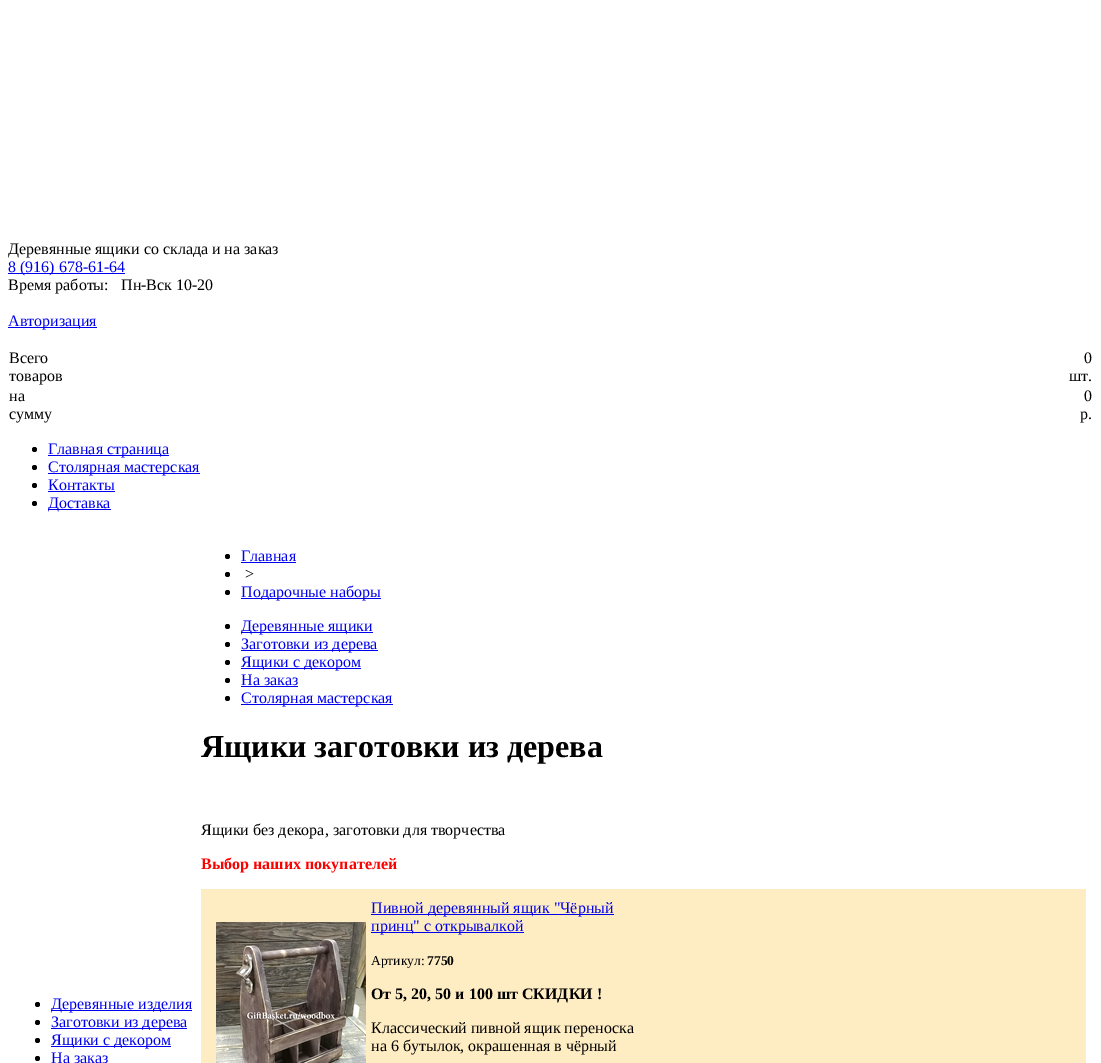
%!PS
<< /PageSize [1101 1063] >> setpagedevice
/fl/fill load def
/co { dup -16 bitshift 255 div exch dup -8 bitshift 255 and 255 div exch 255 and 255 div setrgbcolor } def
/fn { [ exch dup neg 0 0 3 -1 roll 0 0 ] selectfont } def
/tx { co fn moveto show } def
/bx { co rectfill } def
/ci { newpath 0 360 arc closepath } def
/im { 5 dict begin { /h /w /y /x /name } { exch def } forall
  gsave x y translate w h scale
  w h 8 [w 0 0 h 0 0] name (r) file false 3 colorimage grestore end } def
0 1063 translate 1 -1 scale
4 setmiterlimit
0 0 1101 1063 16#FFFFFF bx
8 273 117 1 16#0000EE bx
8 327 89 1 16#0000EE bx
16#000000 co
34.5 449.5 2.5 ci fl
48 455 121 1 16#0000EE bx
16#000000 co
34.5 467.5 2.5 ci fl
48 473 152 1 16#0000EE bx
16#000000 co
34.5 485.5 2.5 ci fl
48 491 67 1 16#0000EE bx
16#000000 co
34.5 503.5 2.5 ci fl
48 509 63 1 16#0000EE bx
16#000000 co
37.5 1004.5 2.5 ci fl
51 1010 141 1 16#0000EE bx
16#000000 co
37.5 1022.5 2.5 ci fl
51 1028 136 1 16#0000EE bx
16#000000 co
37.5 1040.5 2.5 ci fl
51 1046 120 1 16#0000EE bx
16#000000 co
37.5 1058.5 2.5 ci fl
227.5 556.5 2.5 ci fl
241 562 55 1 16#0000EE bx
16#000000 co
227.5 574.5 2.5 ci fl
227.5 592.5 2.5 ci fl
241 598 140 1 16#0000EE bx
16#000000 co
227.5 626.5 2.5 ci fl
241 632 132 1 16#0000EE bx
16#000000 co
227.5 644.5 2.5 ci fl
241 650 137 1 16#0000EE bx
16#000000 co
227.5 662.5 2.5 ci fl
241 668 120 1 16#0000EE bx
16#000000 co
227.5 680.5 2.5 ci fl
241 686 57 1 16#0000EE bx
16#000000 co
227.5 698.5 2.5 ci fl
241 704 152 1 16#0000EE bx
201 889 885 174 16#FEEDC2 bx
(media/1.raw) 216 922 150 141 im
371 914 243 1 16#0000EE bx
371 932 153 1 16#0000EE bx
(Деревянные ящики со склада и на заказ) 8 254 /LiberationSerif-Regular 16 16#000000 tx
(8 \(916\) 678-61-64) 8 272 /LiberationSerif-Regular 16 16#0000EE tx
(Время работы:) 8 290 /LiberationSerif-Regular 16 16#000000 tx
(Пн-Вск 10-20) 121 290 /LiberationSerif-Regular 16 16#000000 tx
(Авторизация) 8 326 /LiberationSerif-Regular 16 16#0000EE tx
(Всего) 9 363 /LiberationSerif-Regular 16 16#000000 tx
(товаров) 9 381 /LiberationSerif-Regular 16 16#000000 tx
(0) 1084 363 /LiberationSerif-Regular 16 16#000000 tx
(шт.) 1069 381 /LiberationSerif-Regular 16 16#000000 tx
(на) 9 401 /LiberationSerif-Regular 16 16#000000 tx
(сумму) 9 419 /LiberationSerif-Regular 16 16#000000 tx
(0) 1084 401 /LiberationSerif-Regular 16 16#000000 tx
(р.) 1080 419 /LiberationSerif-Regular 16 16#000000 tx
(Главная страница) 48 454 /LiberationSerif-Regular 16 16#0000EE tx
(Столярная мастерская) 48 472 /LiberationSerif-Regular 16 16#0000EE tx
(Контакты) 48 490 /LiberationSerif-Regular 16 16#0000EE tx
(Доставка) 48 508 /LiberationSerif-Regular 16 16#0000EE tx
(Деревянные изделия) 51 1009 /LiberationSerif-Regular 16 16#0000EE tx
(Заготовки из дерева) 51 1027 /LiberationSerif-Regular 16 16#0000EE tx
(Ящики с декором) 51 1045 /LiberationSerif-Regular 16 16#0000EE tx
(На заказ) 51 1063 /LiberationSerif-Regular 16 16#0000EE tx
(Главная) 241 561 /LiberationSerif-Regular 16 16#0000EE tx
(>) 245 579 /LiberationSerif-Regular 16 16#000000 tx
(Подарочные наборы) 241 597 /LiberationSerif-Regular 16 16#0000EE tx
(Деревянные ящики) 241 631 /LiberationSerif-Regular 16 16#0000EE tx
(Заготовки из дерева) 241 649 /LiberationSerif-Regular 16 16#0000EE tx
(Ящики с декором) 241 667 /LiberationSerif-Regular 16 16#0000EE tx
(На заказ) 241 685 /LiberationSerif-Regular 16 16#0000EE tx
(Столярная мастерская) 241 703 /LiberationSerif-Regular 16 16#0000EE tx
(Ящики заготовки из дерева) 201 757 /LiberationSerif-Bold 32 16#000000 tx
(Ящики без декора, заготовки для творчества) 201 835 /LiberationSerif-Regular 16 16#000000 tx
(Выбор наших покупателей) 201 869 /LiberationSerif-Bold 16 16#FF0000 tx
(Пивной деревянный ящик "Чёрный) 371 913 /LiberationSerif-Regular 16 16#0000EE tx
(принц" с открывалкой) 371 931 /LiberationSerif-Regular 16 16#0000EE tx
(Артикул:) 371 965 /LiberationSerif-Regular 13.5 16#000000 tx
(7750) 427 965 /LiberationSerif-Bold 13.5 16#000000 tx
(От 5, 20, 50 и 100 шт СКИДКИ !) 371 999 /LiberationSerif-Bold 16 16#000000 tx
(Классический пивной ящик переноска) 371 1033 /LiberationSerif-Regular 16 16#000000 tx
(на 6 бутылок, окрашенная в чёрный) 371 1051 /LiberationSerif-Regular 16 16#000000 tx
showpage
